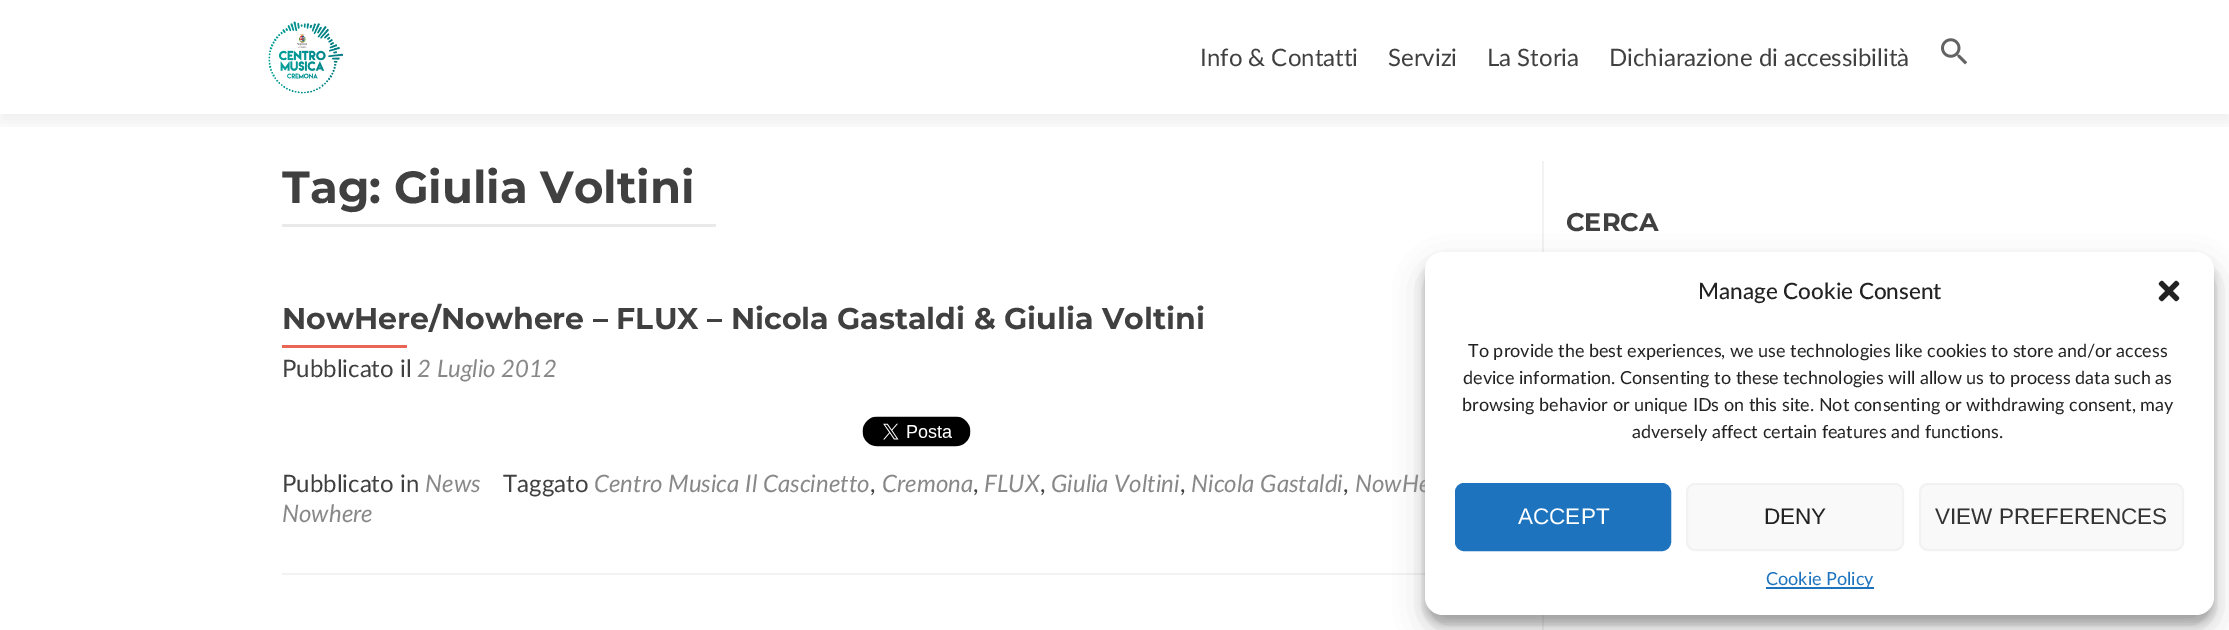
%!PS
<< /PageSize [2229 630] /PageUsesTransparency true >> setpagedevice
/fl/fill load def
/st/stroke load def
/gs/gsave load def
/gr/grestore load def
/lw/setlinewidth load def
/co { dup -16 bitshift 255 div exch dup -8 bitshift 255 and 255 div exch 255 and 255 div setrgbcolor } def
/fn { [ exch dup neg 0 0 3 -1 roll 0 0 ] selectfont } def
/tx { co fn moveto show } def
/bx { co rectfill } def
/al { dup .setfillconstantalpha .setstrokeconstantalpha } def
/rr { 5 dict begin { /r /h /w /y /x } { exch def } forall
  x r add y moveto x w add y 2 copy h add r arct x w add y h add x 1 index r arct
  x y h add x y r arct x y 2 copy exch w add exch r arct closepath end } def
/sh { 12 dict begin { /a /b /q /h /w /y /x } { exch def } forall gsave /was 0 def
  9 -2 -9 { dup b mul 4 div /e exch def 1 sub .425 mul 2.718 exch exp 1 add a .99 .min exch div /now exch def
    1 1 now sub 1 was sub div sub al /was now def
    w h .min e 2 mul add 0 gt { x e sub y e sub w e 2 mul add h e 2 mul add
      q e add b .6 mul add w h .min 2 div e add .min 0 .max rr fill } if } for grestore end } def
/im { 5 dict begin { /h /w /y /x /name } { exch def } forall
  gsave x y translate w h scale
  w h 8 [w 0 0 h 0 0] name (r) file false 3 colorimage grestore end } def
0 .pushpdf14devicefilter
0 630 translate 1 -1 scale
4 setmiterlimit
0 0 2229 630 16#FFFFFF bx
gs
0 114 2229 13 rectclip
16#323232 co
0 8 2229 114 0 8 .08 sh
gr
(media/1.raw) 268 21 76 73 im
(media/2.raw) 1941 38 27 27 im
282 224 434 3 16#E9E9E9 bx
282 573 1143 2 16#F2F2F2 bx
282 345 125 3 16#E96656 bx
(media/3.raw) 862 416 109 31 im
1542 161 2 469 16#F2F2F2 bx
16#000000 co
1425 261 789 363 18 4.5 .23 sh
1425 267 789 363 18 15 .19 sh
(Info & Contatti) 1200 66 /Lato-Regular 24 16#404040 tx
(Servizi) 1388 66 /Lato-Regular 24 16#404040 tx
(La Storia) 1487 66 /Lato-Regular 24 16#404040 tx
(Dichiarazione di accessibilità) 1609 66 /Lato-Regular 24 16#404040 tx
(Tag: Giulia Voltini) 282 203 /Montserrat-Bold 45 16#404040 tx
(NowHere/Nowhere – FLUX – Nicola Gastaldi & Giulia Voltini) 282 329 /Montserrat-Bold 30 16#404040 tx
(Pubblicato il) 282 377 /Lato-Regular 24 16#404040 tx
(2 Luglio 2012) 417 377 /Lato-Italic 24 16#888888 tx
(Pubblicato in) 282 492 /Lato-Regular 24 16#404040 tx
(News) 425 492 /Lato-Italic 24 16#888888 tx
(Taggato) 503 492 /Lato-Regular 24 16#404040 tx
(Centro Musica Il Cascinetto) 594 492 /Lato-Italic 24 16#888888 tx
(,) 870 492 /Lato-Regular 24 16#404040 tx
(Cremona) 882 492 /Lato-Italic 24 16#888888 tx
(,) 973 492 /Lato-Regular 24 16#404040 tx
(FLUX) 984 492 /Lato-Italic 24 16#888888 tx
(,) 1040 492 /Lato-Regular 24 16#404040 tx
(Giulia Voltini) 1051 492 /Lato-Italic 24 16#888888 tx
(,) 1180 492 /Lato-Regular 24 16#404040 tx
(Nicola Gastaldi) 1191 492 /Lato-Italic 24 16#888888 tx
(,) 1343 492 /Lato-Regular 24 16#404040 tx
(NowHe) 1355 492 /Lato-Italic 24 16#888888 tx
(Nowhere) 282 522 /Lato-Italic 24 16#888888 tx
(CERCA) 1566 231 /Montserrat-Bold 25.5 16#404040 tx
16#FFFFFF co
1425 252 789 363 18 rr fl
(Manage Cookie Consent) 1698 299 /Lato-Medium 22.5 16#222222 tx
(media/4.raw) 2158 280 22 22 im
(To provide the best experiences, we use technologies like cookies to store and/or access) 1468 357 /Lato-Regular 18 16#222222 tx
(device information. Consenting to these technologies will allow us to process data such as) 1463 384 /Lato-Regular 18 16#222222 tx
(browsing behavior or unique IDs on this site. Not consenting or withdrawing consent, may) 1462 411 /Lato-Regular 18 16#222222 tx
(adversely affect certain features and functions.) 1632 438 /Lato-Regular 18 16#222222 tx
16#1E73BE co
1456 484 214 66 8 rr gs fl gr
2 lw
st
(ACCEPT) 1518 524 /LiberationSans-Regular 22.5 16#FFFFFF tx
16#F9F9F9 co
1687 484 216 66 8 rr gs fl gr
16#F2F2F2 co
st
(DENY) 1764 524 /LiberationSans-Regular 22.5 16#222222 tx
16#F9F9F9 co
1920 484 263 66 8 rr gs fl gr
16#F2F2F2 co
st
(VIEW PREFERENCES) 1935 524 /LiberationSans-Regular 22.5 16#333333 tx
1766 587 108 2 16#1E73BE bx
(Cookie Policy) 1766 585 /Lato-Regular 18 16#1E73BE tx
.poppdf14devicefilter showpage
